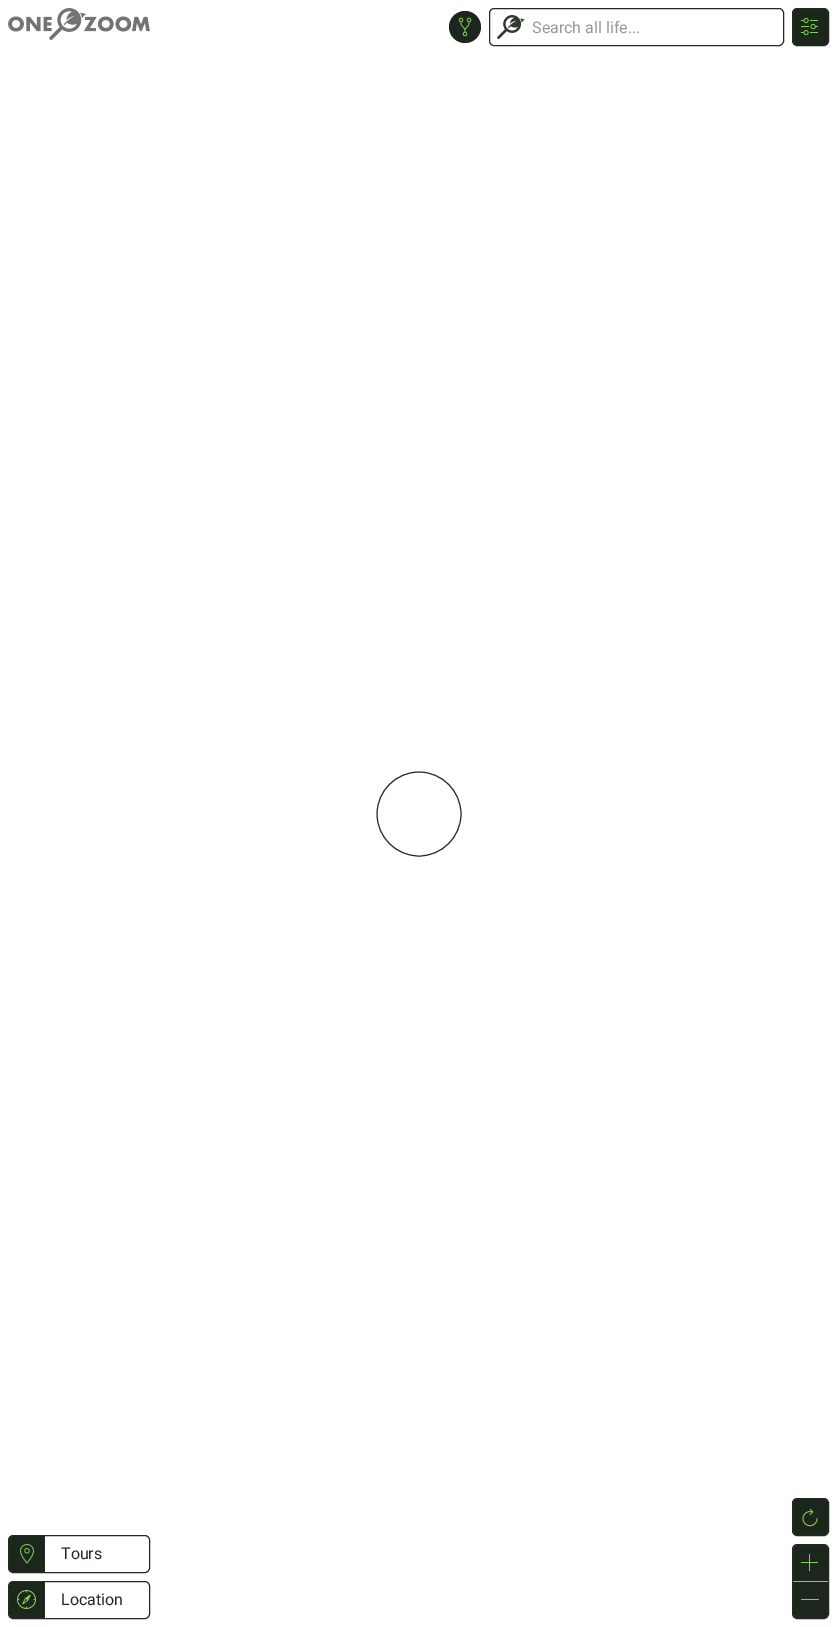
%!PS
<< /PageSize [837 1627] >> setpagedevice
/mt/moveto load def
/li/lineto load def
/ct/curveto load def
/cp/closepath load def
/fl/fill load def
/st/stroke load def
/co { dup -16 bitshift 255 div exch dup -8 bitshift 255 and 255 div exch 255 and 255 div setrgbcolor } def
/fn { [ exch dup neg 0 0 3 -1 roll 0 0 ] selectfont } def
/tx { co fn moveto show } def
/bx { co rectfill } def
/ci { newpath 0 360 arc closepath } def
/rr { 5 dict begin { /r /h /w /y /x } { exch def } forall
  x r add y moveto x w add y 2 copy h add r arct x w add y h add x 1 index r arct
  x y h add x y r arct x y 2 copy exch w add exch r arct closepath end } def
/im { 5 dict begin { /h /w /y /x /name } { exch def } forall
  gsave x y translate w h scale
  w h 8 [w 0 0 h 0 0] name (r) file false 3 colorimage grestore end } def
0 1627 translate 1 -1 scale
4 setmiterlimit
0 0 837 1627 16#FFFFFF bx
(media/1.raw) 8 8 142 32 im
16#1C261C co
465 27 16 ci fl
(media/2.raw) 458 17 14 20 im
16#242A22 co
489.5 8.5 294 37 4.5 rr st
(media/3.raw) 497 15 28 24 im
792.5 8.5 36 37 4.5 rr st
16#1C261C co
793 9 35 36 4 rr fl
(media/4.raw) 801 17 17 19 im
16#242A22 co
1 setlinecap
419 772 mt 442 772 461 791 461 814 ct 461 837 442 856 419 856 ct 396 856 377 837 377 814 ct 377 791 396 772 419 772 ct st
0 setlinecap
8.5 1535.5 141 37 4.5 rr st
16#1C261C co
13 1536 mt 45 1536 li 45 1572 li 13 1572 li 11 1572 9 1570 9 1568 ct 9 1540 li 9 1538 11 1536 13 1536 ct cp fl
44 1536 1 36 16#242A22 bx
(media/5.raw) 20 1544 14 20 im
8.5 1581.5 141 37 4.5 rr st
16#1C261C co
13 1582 mt 45 1582 li 45 1618 li 13 1618 li 11 1618 9 1616 9 1614 ct 9 1586 li 9 1584 11 1582 13 1582 ct cp fl
44 1582 1 36 16#242A22 bx
(media/6.raw) 17 1590 20 20 im
792.5 1498.5 36 37 4.5 rr st
16#1C261C co
793 1499 35 36 4 rr fl
(media/7.raw) 802 1508 16 19 im
16#242A22 co
792.5 1544.5 36 74 4.5 rr st
16#1C261C co
797 1545 mt 824 1545 li 826 1545 828 1547 828 1549 ct 828 1581 li 793 1581 li 793 1549 li 793 1547 795 1545 797 1545 ct cp fl
809 1554 1 17 16#7FD14F bx
801 1562 17 1 16#7FD14F bx
16#1C261C co
793 1581 mt 828 1581 li 828 1614 li 828 1616 826 1618 824 1618 ct 797 1618 li 795 1618 793 1616 793 1614 ct cp fl
793 1581 35 1 16#7FD14F bx
801 1599 18 1 16#7FD14F bx
(Search all life...) 532 33 /Roboto-Regular 16 16#999999 tx
(Tours) 61 1559 /Roboto-Regular 16 16#242A22 tx
(Location) 61 1605 /Roboto-Regular 16 16#242A22 tx
showpage
